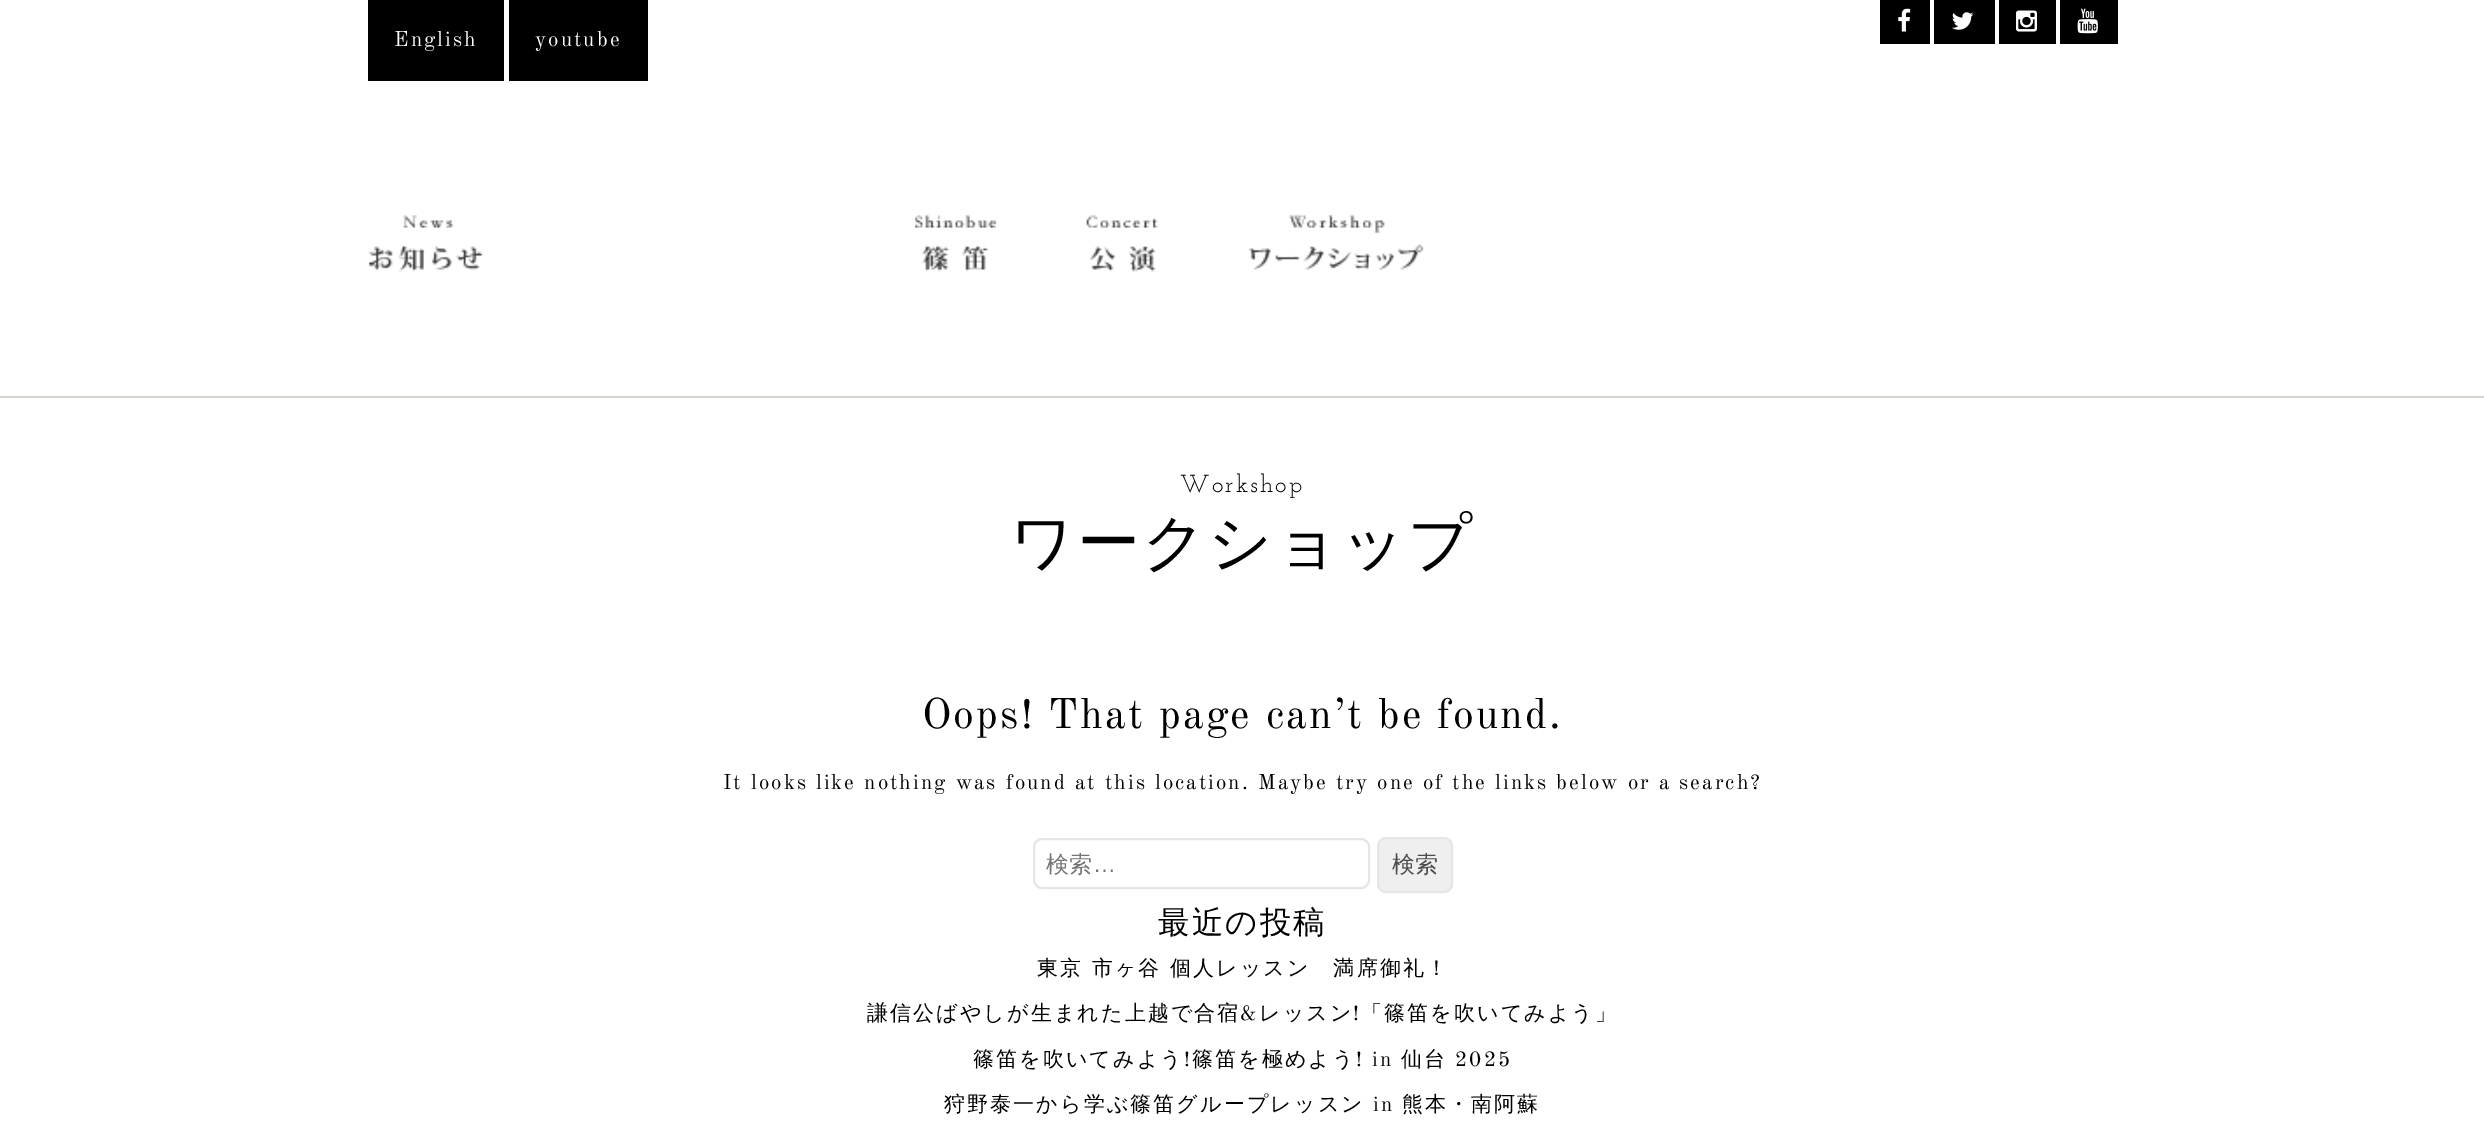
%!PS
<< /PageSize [2484 1147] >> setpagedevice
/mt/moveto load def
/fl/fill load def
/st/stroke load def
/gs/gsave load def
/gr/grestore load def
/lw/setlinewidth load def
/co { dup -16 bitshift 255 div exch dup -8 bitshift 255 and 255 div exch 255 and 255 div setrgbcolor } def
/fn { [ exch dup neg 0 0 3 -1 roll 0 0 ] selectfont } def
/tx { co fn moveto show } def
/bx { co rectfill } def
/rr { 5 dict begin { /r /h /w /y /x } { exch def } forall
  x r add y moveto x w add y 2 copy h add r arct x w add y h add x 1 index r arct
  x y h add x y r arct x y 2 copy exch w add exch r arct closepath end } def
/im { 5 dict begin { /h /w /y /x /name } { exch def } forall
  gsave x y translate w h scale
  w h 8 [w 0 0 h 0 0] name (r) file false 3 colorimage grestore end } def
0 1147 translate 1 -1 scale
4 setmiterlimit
0 0 2484 1147 16#FFFFFF bx
368 0 136 81 16#000000 bx
509 0 139 81 16#000000 bx
1880 0 50 44 16#000000 bx
(media/1.raw) 1898 8 13 24 im
1934 0 61 44 16#000000 bx
(media/2.raw) 1952 12 22 18 im
1999 0 57 44 16#000000 bx
(media/3.raw) 2016 10 21 22 im
2060 0 58 44 16#000000 bx
(media/4.raw) 2077 8 21 26 im
(media/5.raw) 368 215 116 57 im
(media/6.raw) 914 214 83 58 im
(media/7.raw) 1086 215 73 57 im
(media/8.raw) 1249 214 175 56 im
0 396 2484 2 16#D2D6CE bx
16#E6E6E6 co
2 lw
1034 839 335 49 8 rr st
16#EFEFEF co
1378 838 74 54 8 rr gs fl gr
16#E6E6E6 co
st
/OldStandardTT-Regular 21 fn
16#FFFFFF co
394 46 mt 2.1 0 (English) ashow
535 46 mt 2.1 0 (youtube) ashow
/JosefinSlab-Regular 24.5 fn
16#000000 co
1180 492 mt 2.1 0 (Workshop) ashow
/WenQuanYiZenHei-Medium 63 fn
1010 564 mt 2.1 0 (ワークショップ) ashow
/OldStandardTT-Regular 42 fn
922 728 mt 2.1 0 (Oops! That page can’t be found.) ashow
/OldStandardTT-Regular 21 fn
723 789 mt 2.1 0 (It looks like nothing was found at this location. Maybe try one of the links below or a search?) ashow
(検索) 1046 872 /WenQuanYiZenHei-Medium 23 16#757575 tx
(…) 1093 872 /LiberationSans-Regular 23 16#757575 tx
(検索) 1392 872 /WenQuanYiZenHei-Medium 23 16#4C4C4C tx
/WenQuanYiZenHei-Medium 31.5 fn
16#000000 co
1158 933 mt 2.1 0 (最近の投稿) ashow
/WenQuanYiZenHei-Medium 21 fn
1037 975 mt 2.1 0 (東京 市ヶ谷 個人レッスン　満席御礼！) ashow
867 1020 mt 2.1 0 (謙信公ばやしが生まれた上越で合宿) ashow
/OldStandardTT-Regular 21 fn
1240 1020 mt 2.1 0 (&) ashow
/WenQuanYiZenHei-Medium 21 fn
1259 1020 mt 2.1 0 (レッスン) ashow
/OldStandardTT-Regular 21 fn
1353 1020 mt 2.1 0 (!) ashow
/WenQuanYiZenHei-Medium 21 fn
1361 1020 mt 2.1 0 (「篠笛を吹いてみよう」) ashow
973 1066 mt 2.1 0 (篠笛を吹いてみよう) ashow
/OldStandardTT-Regular 21 fn
1184 1066 mt 2.1 0 (!) ashow
/WenQuanYiZenHei-Medium 21 fn
1192 1066 mt 2.1 0 (篠笛を極めよう) ashow
/OldStandardTT-Regular 21 fn
1356 1066 mt 2.1 0 (! in) ashow
/WenQuanYiZenHei-Medium 21 fn
1401 1066 mt 2.1 0 (仙台) ashow
/OldStandardTT-Regular 21 fn
1455 1066 mt 2.1 0 (2025) ashow
/WenQuanYiZenHei-Medium 21 fn
944 1111 mt 2.1 0 (狩野泰一から学ぶ篠笛グループレッスン) ashow
/OldStandardTT-Regular 21 fn
1373 1111 mt 2.1 0 (in) ashow
/WenQuanYiZenHei-Medium 21 fn
1402 1111 mt 2.1 0 (熊本・南阿蘇) ashow
showpage
